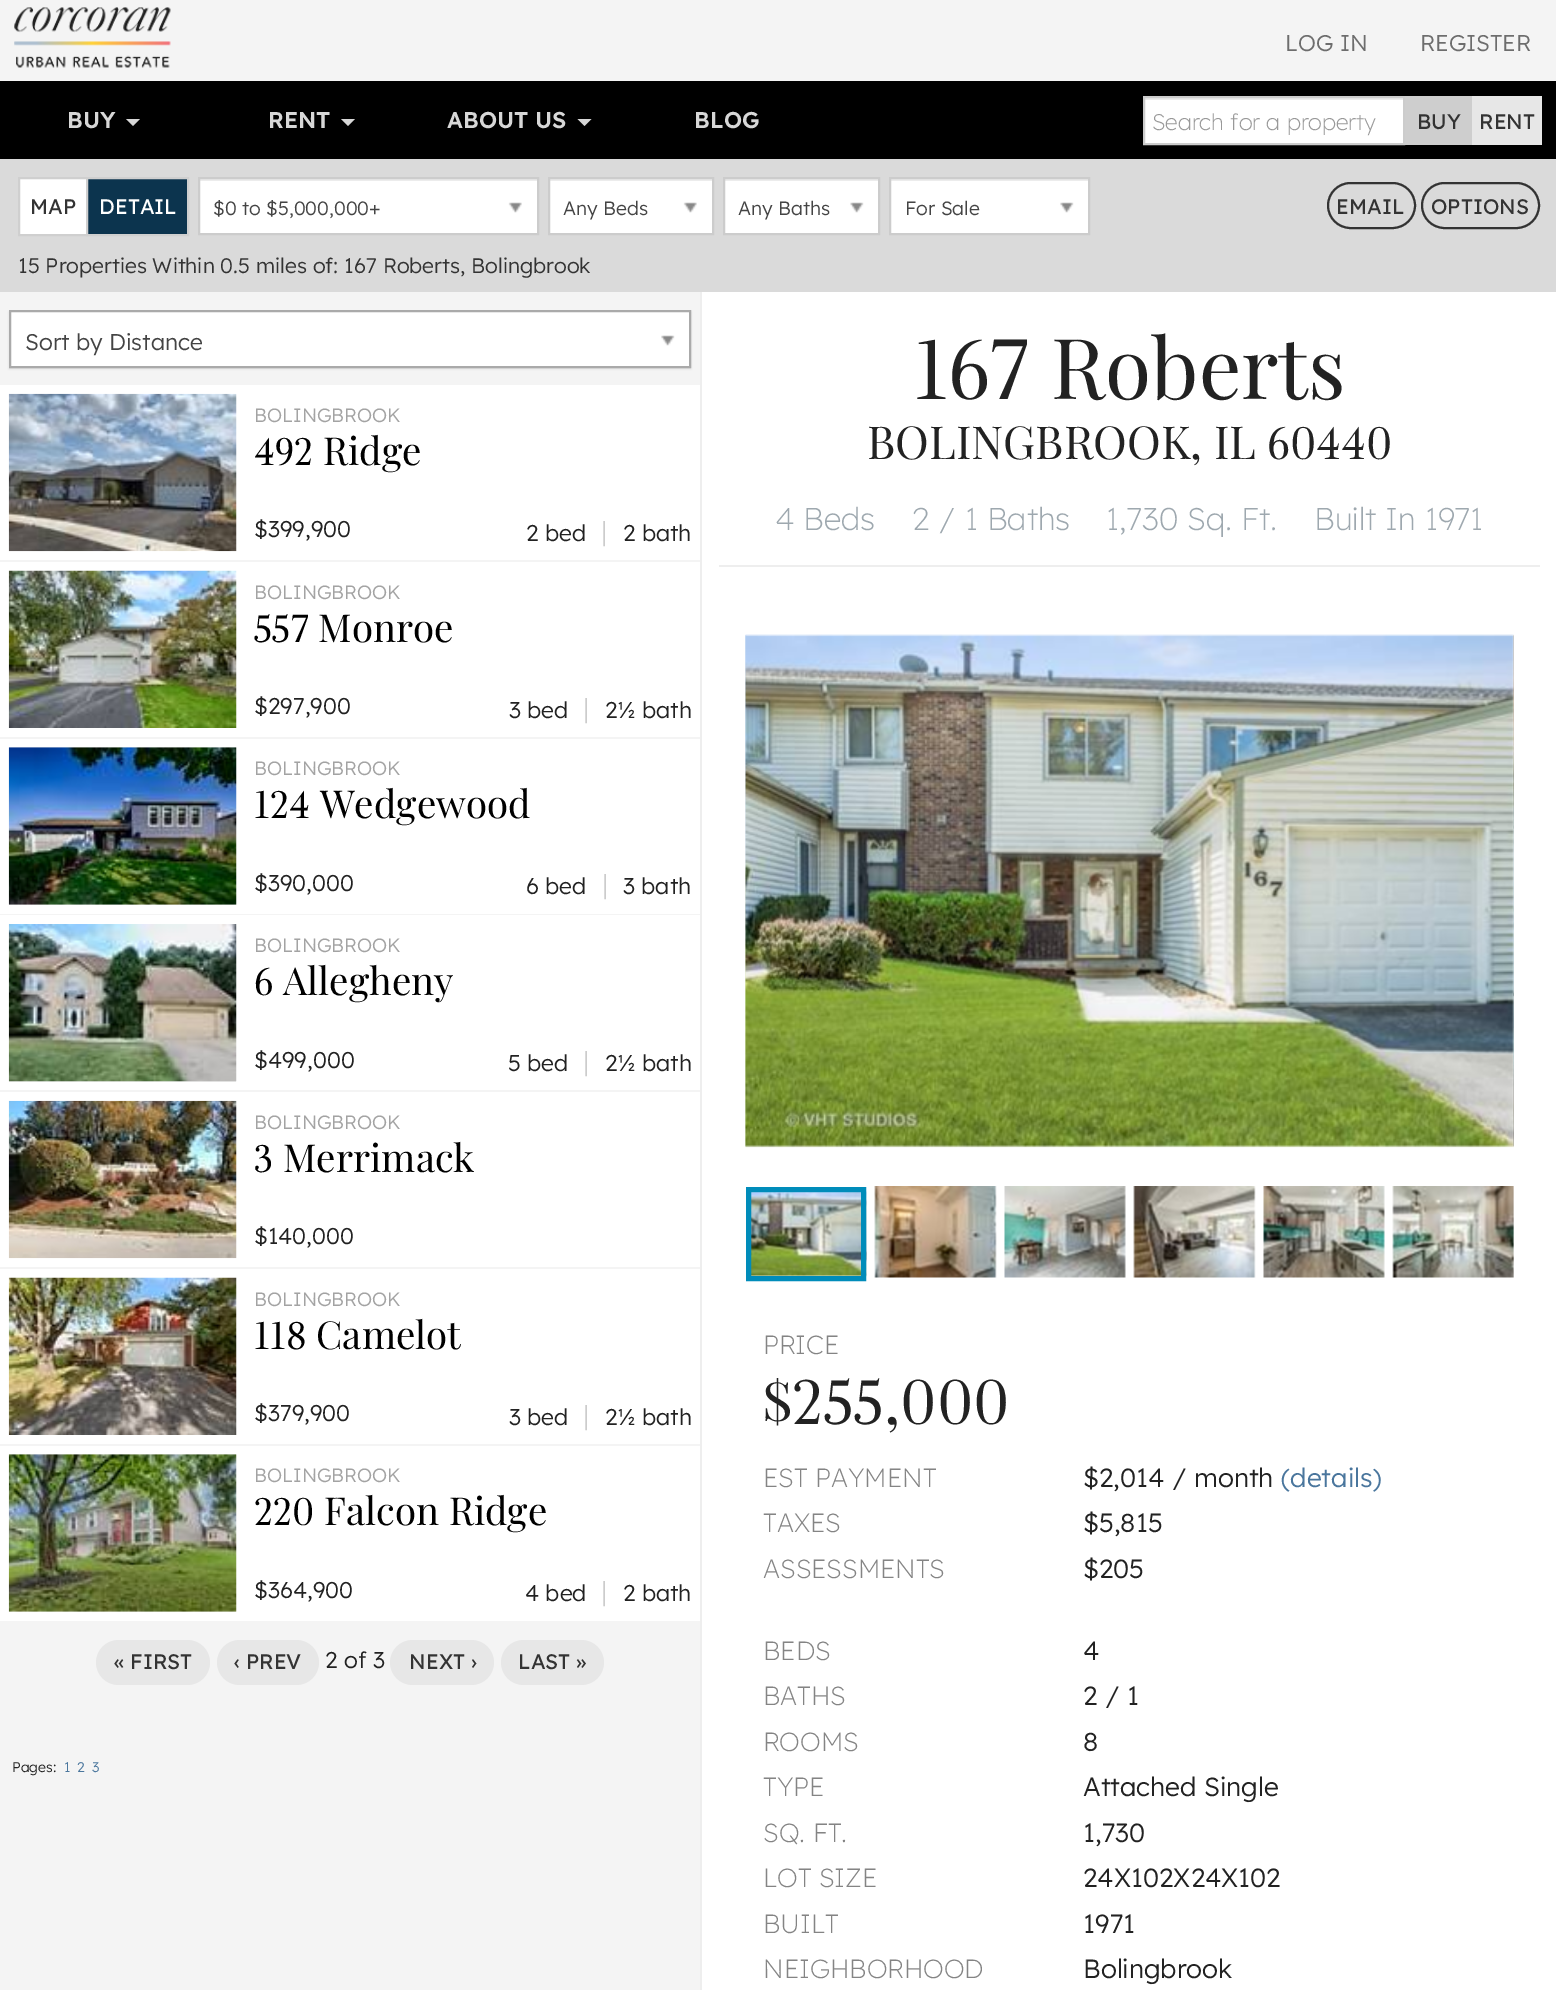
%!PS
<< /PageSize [1556 1990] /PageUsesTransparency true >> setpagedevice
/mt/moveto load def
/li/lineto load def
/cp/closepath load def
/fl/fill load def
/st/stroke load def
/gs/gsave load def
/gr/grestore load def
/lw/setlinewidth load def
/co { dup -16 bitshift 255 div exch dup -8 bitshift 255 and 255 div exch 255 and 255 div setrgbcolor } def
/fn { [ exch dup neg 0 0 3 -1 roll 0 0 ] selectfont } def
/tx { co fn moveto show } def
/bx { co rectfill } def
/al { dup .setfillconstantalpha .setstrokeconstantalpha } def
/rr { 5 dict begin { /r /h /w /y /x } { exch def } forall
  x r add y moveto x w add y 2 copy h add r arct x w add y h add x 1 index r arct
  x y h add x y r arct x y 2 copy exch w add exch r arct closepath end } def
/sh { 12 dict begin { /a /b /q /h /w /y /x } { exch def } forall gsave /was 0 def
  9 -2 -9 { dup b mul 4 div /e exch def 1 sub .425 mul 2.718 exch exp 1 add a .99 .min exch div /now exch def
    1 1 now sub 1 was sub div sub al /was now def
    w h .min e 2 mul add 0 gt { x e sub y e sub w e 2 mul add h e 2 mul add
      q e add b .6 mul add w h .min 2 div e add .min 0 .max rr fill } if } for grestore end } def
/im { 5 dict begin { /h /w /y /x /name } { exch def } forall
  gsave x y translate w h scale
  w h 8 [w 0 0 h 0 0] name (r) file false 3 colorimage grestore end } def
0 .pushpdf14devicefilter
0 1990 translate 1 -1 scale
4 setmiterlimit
0 0 1556 1990 16#F4F4F4 bx
(media/1.raw) 14 7 157 61 im
0 81 1556 78 16#000000 bx
16#D7D7D7 co
126 119 mt 140 119 li 133 126 li cp fl
341 119 mt 355 119 li 348 126 li cp fl
577.5 119 mt 591.5 119 li 584.5 126 li cp fl
1145 100 258 43 16#FFFFFF bx
1145 98 259 2 16#ECECEC bx
16#CCCCCC co
2 lw
1144 97 260 47 rectstroke
1405 96 67 49 16#CECECE bx
1472 96 70 49 16#E7E7E7 bx
0 159 1556 133 16#DADADA bx
16#FFFFFF co
19 178 mt 87 178 li 87 235 li 19 235 li cp gs fl gr
16#CFCFCF co
st
16#0C344E co
87 178 mt 188 178 li 188 235 li 87 235 li cp gs fl gr
16#CFCFCF co
st
200 181 337 52 16#FFFFFF bx
200 179 337 2 16#ECECEC bx
16#CCCCCC co
199 178 339 56 rectstroke
(media/2.raw) 508 202 14 11 im
550 181 162 52 16#FFFFFF bx
550 179 162 2 16#ECECEC bx
16#CCCCCC co
549 178 164 56 rectstroke
(media/2.raw) 683 202 14 11 im
725 181 153 52 16#FFFFFF bx
725 179 154 2 16#ECECEC bx
16#CCCCCC co
724 178 155 56 rectstroke
(media/3.raw) 850 202 14 11 im
891 181 197 52 16#FFFFFF bx
891 179 198 2 16#ECECEC bx
16#CCCCCC co
890 178 199 56 rectstroke
(media/4.raw) 1060 202 14 11 im
16#333333 co
1328 183 87 45 22.5 rr st
1422 183 117 45 22.5 rr st
16#000000 co
9 312 682 57 0 1 .1 sh
16#FFFFFF co
10 311 mt 690 311 li 690 367 li 10 367 li cp gs fl gr
16#AAAAAA co
st
(media/4.raw) 661 335 14 11 im
0 385 700 175 16#FFFFFF bx
(media/5.raw) 8 393 229 159 im
0 562 700 175 16#FFFFFF bx
(media/6.raw) 8 570 229 158 im
0 739 700 175 16#FFFFFF bx
9 747 227 158 16#EEEEEE bx
(media/7.raw) 8 747 229 158 im
0 915 700 175 16#FFFFFF bx
9 1081 227 1 16#EEEEEE bx
(media/8.raw) 8 924 229 158 im
0 1092 700 175 16#FFFFFF bx
(media/9.raw) 8 1100 229 159 im
0 1269 700 175 16#FFFFFF bx
(media/10.raw) 8 1277 229 158 im
0 1446 700 175 16#FFFFFF bx
9 1454 227 158 16#EEEEEE bx
(media/11.raw) 8 1454 229 158 im
16#E7E7E7 co
96 1640 114 45 22.5 rr fl
217 1640 102 45 22.5 rr fl
390 1640 104 45 22.5 rr fl
501 1640 103 45 22.5 rr fl
702 292 854 1698 16#FFFFFF bx
700 292 2 1698 16#EEEEEE bx
719 565 821 2 16#EEEEEE bx
(media/13.raw) 745 635 2 512 im
(media/12.raw) 745 634 769 514 im
(media/14.raw) 1513 635 1 512 im
(media/15.raw) 751 1191 116 86 im
16#008CBA co
5 lw
748.5 1189.5 115 89 rectstroke
(media/16.raw) 874 1186 123 92 im
(media/17.raw) 1004 1186 122 92 im
(media/18.raw) 1133 1186 123 92 im
(media/19.raw) 1263 1186 122 92 im
(media/20.raw) 1392 1186 122 92 im
(LOG IN) 1285 51 /Lexend-Regular 22.75 16#6D6D6D tx
(REGISTER) 1420 51 /Lexend-Regular 22.75 16#6D6D6D tx
(BUY) 67 128 /Lexend-SemiBold 22.75 16#D7D7D7 tx
(RENT) 268 128 /Lexend-SemiBold 22.75 16#D7D7D7 tx
(ABOUT US) 447 128 /Lexend-SemiBold 22.75 16#D7D7D7 tx
(BLOG) 694 128 /Lexend-SemiBold 22.75 16#D7D7D7 tx
(Search for a property) 1152 130 /Lexend-Light 22.75 16#999999 tx
(BUY) 1417 129 /Lexend-Medium 21 16#333333 tx
(RENT) 1479 129 /Lexend-Medium 21 16#333333 tx
(MAP) 30 214 /Lexend-Medium 21 16#333333 tx
(DETAIL) 99 214 /Lexend-Medium 21 16#FFFFFF tx
($0 to $5,000,000+) 213 215 /Lexend-Regular 19.25 16#444444 tx
(Any Beds) 563 215 /Lexend-Regular 19.25 16#444444 tx
(Any Baths) 738 215 /Lexend-Regular 19.25 16#444444 tx
(For Sale) 905 215 /Lexend-Regular 19.25 16#444444 tx
(EMAIL) 1336 214 /Lexend-Medium 21 16#333333 tx
(OPTIONS) 1431 214 /Lexend-Medium 21 16#333333 tx
(15 Properties Within 0.5 miles of: 167 Roberts, Bolingbrook) 18 273 /Lexend-Regular 21 16#333333 tx
(Sort by Distance) 25 350 /Lexend-Regular 22.75 16#444444 tx
(BOLINGBROOK) 254 422 /Lexend-Regular 19.25 16#A3A3A3 tx
(492 Ridge) 254 465 /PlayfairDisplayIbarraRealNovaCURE-Regular 38.5 16#000000 tx
($399,900) 254 537 /Lexend-Regular 22.75 16#222222 tx
(2 bed) 526 541 /Lexend-Regular 22.75 16#222222 tx
(|) 601 541 /Lexend-Regular 27 16#CCCCCC tx
(2 bath) 623 541 /Lexend-Regular 22.75 16#222222 tx
(BOLINGBROOK) 254 599 /Lexend-Regular 19.25 16#A3A3A3 tx
(557 Monroe) 254 642 /PlayfairDisplayIbarraRealNovaCURE-Regular 38.5 16#000000 tx
($297,900) 254 714 /Lexend-Regular 22.75 16#222222 tx
(3 bed) 509 718 /Lexend-Regular 22.75 16#222222 tx
(|) 583 718 /Lexend-Regular 27 16#CCCCCC tx
(2½ bath) 605 718 /Lexend-Regular 22.75 16#222222 tx
(BOLINGBROOK) 254 775 /Lexend-Regular 19.25 16#A3A3A3 tx
(124 Wedgewood) 254 818 /PlayfairDisplayIbarraRealNovaCURE-Regular 38.5 16#000000 tx
($390,000) 254 891 /Lexend-Regular 22.75 16#222222 tx
(6 bed) 526 894 /Lexend-Regular 22.75 16#222222 tx
(|) 602 894 /Lexend-Regular 27 16#CCCCCC tx
(3 bath) 623 894 /Lexend-Regular 22.75 16#222222 tx
(BOLINGBROOK) 254 952 /Lexend-Regular 19.25 16#A3A3A3 tx
(6 Allegheny) 254 995 /PlayfairDisplayIbarraRealNovaCURE-Regular 38.5 16#000000 tx
($499,000) 254 1068 /Lexend-Regular 22.75 16#222222 tx
(5 bed) 508 1071 /Lexend-Regular 22.75 16#222222 tx
(|) 583 1071 /Lexend-Regular 27 16#CCCCCC tx
(2½ bath) 605 1071 /Lexend-Regular 22.75 16#222222 tx
(BOLINGBROOK) 254 1129 /Lexend-Regular 19.25 16#A3A3A3 tx
(3 Merrimack) 254 1172 /PlayfairDisplayIbarraRealNovaCURE-Regular 38.5 16#000000 tx
($140,000) 254 1244 /Lexend-Regular 22.75 16#222222 tx
(BOLINGBROOK) 254 1306 /Lexend-Regular 19.25 16#A3A3A3 tx
(118 Camelot) 254 1349 /PlayfairDisplayIbarraRealNovaCURE-Regular 38.5 16#000000 tx
($379,900) 254 1421 /Lexend-Regular 22.75 16#222222 tx
(3 bed) 509 1425 /Lexend-Regular 22.75 16#222222 tx
(|) 583 1425 /Lexend-Regular 27 16#CCCCCC tx
(2½ bath) 605 1425 /Lexend-Regular 22.75 16#222222 tx
(BOLINGBROOK) 254 1482 /Lexend-Regular 19.25 16#A3A3A3 tx
(220 Falcon Ridge) 254 1525 /PlayfairDisplayIbarraRealNovaCURE-Regular 38.5 16#000000 tx
($364,900) 254 1598 /Lexend-Regular 22.75 16#222222 tx
(4 bed) 525 1601 /Lexend-Regular 22.75 16#222222 tx
(|) 601 1601 /Lexend-Regular 27 16#CCCCCC tx
(2 bath) 623 1601 /Lexend-Regular 22.75 16#222222 tx
(« FIRST) 114 1669 /Lexend-Medium 21 16#333333 tx
(‹ PREV) 234 1669 /Lexend-Medium 21 16#333333 tx
(2 of 3) 325 1668 /Lexend-Regular 22.75 16#222222 tx
(NEXT ›) 409 1669 /Lexend-Medium 21 16#333333 tx
(LAST ») 518 1669 /Lexend-Medium 21 16#333333 tx
(Pages:) 12 1772 /Lexend-Regular 14 16#222222 tx
(1) 64 1772 /Lexend-Regular 14 16#4A769D tx
(2) 77 1772 /Lexend-Regular 14 16#4A769D tx
(3) 92 1772 /Lexend-Regular 14 16#4A769D tx
(167 Roberts) 914 399 /PlayfairDisplayIbarraRealNovaCURE-Regular 84 16#222222 tx
(BOLINGBROOK, IL 60440) 867 459 /PlayfairDisplayIbarraRealNovaCURE-Regular 45.5 16#222222 tx
(4 Beds) 775 530 /Lexend-Light 31.5 16#9EA8AF tx
(2 / 1 Baths) 912 530 /Lexend-Light 31.5 16#9EA8AF tx
(1,730 Sq. Ft.) 1106 530 /Lexend-Light 31.5 16#9EA8AF tx
(Built In 1971) 1314 530 /Lexend-Light 31.5 16#9EA8AF tx
(PRICE) 763 1354 /Lexend-Light 26.25 16#848484 tx
($255,000) 763 1424 /PlayfairDisplayIbarraRealNovaCURE-Regular 63 16#222222 tx
(EST PAYMENT) 763 1487 /Lexend-Light 26.25 16#848484 tx
($2,014 / month) 1083 1487 /Lexend-Regular 26.25 16#222222 tx
(\(details\)) 1281 1487 /Lexend-Regular 26.25 16#4A769D tx
(TAXES) 763 1532 /Lexend-Light 26.25 16#848484 tx
($5,815) 1083 1532 /Lexend-Regular 26.25 16#222222 tx
(ASSESSMENTS) 763 1578 /Lexend-Light 26.25 16#848484 tx
($205) 1083 1578 /Lexend-Regular 26.25 16#222222 tx
(BEDS) 763 1660 /Lexend-Light 26.25 16#848484 tx
(4) 1083 1660 /Lexend-Regular 26.25 16#222222 tx
(BATHS) 763 1705 /Lexend-Light 26.25 16#848484 tx
(2 / 1) 1083 1705 /Lexend-Regular 26.25 16#222222 tx
(ROOMS) 763 1751 /Lexend-Light 26.25 16#848484 tx
(8) 1083 1751 /Lexend-Regular 26.25 16#222222 tx
(TYPE) 763 1796 /Lexend-Light 26.25 16#848484 tx
(Attached Single) 1083 1796 /Lexend-Regular 26.25 16#222222 tx
(SQ. FT.) 763 1842 /Lexend-Light 26.25 16#848484 tx
(1,730) 1083 1842 /Lexend-Regular 26.25 16#222222 tx
(LOT SIZE) 763 1887 /Lexend-Light 26.25 16#848484 tx
(24X102X24X102) 1083 1887 /Lexend-Regular 26.25 16#222222 tx
(BUILT) 763 1933 /Lexend-Light 26.25 16#848484 tx
(1971) 1083 1933 /Lexend-Regular 26.25 16#222222 tx
(NEIGHBORHOOD) 763 1978 /Lexend-Light 26.25 16#848484 tx
(Bolingbrook) 1083 1978 /Lexend-Regular 26.25 16#222222 tx
.poppdf14devicefilter showpage
